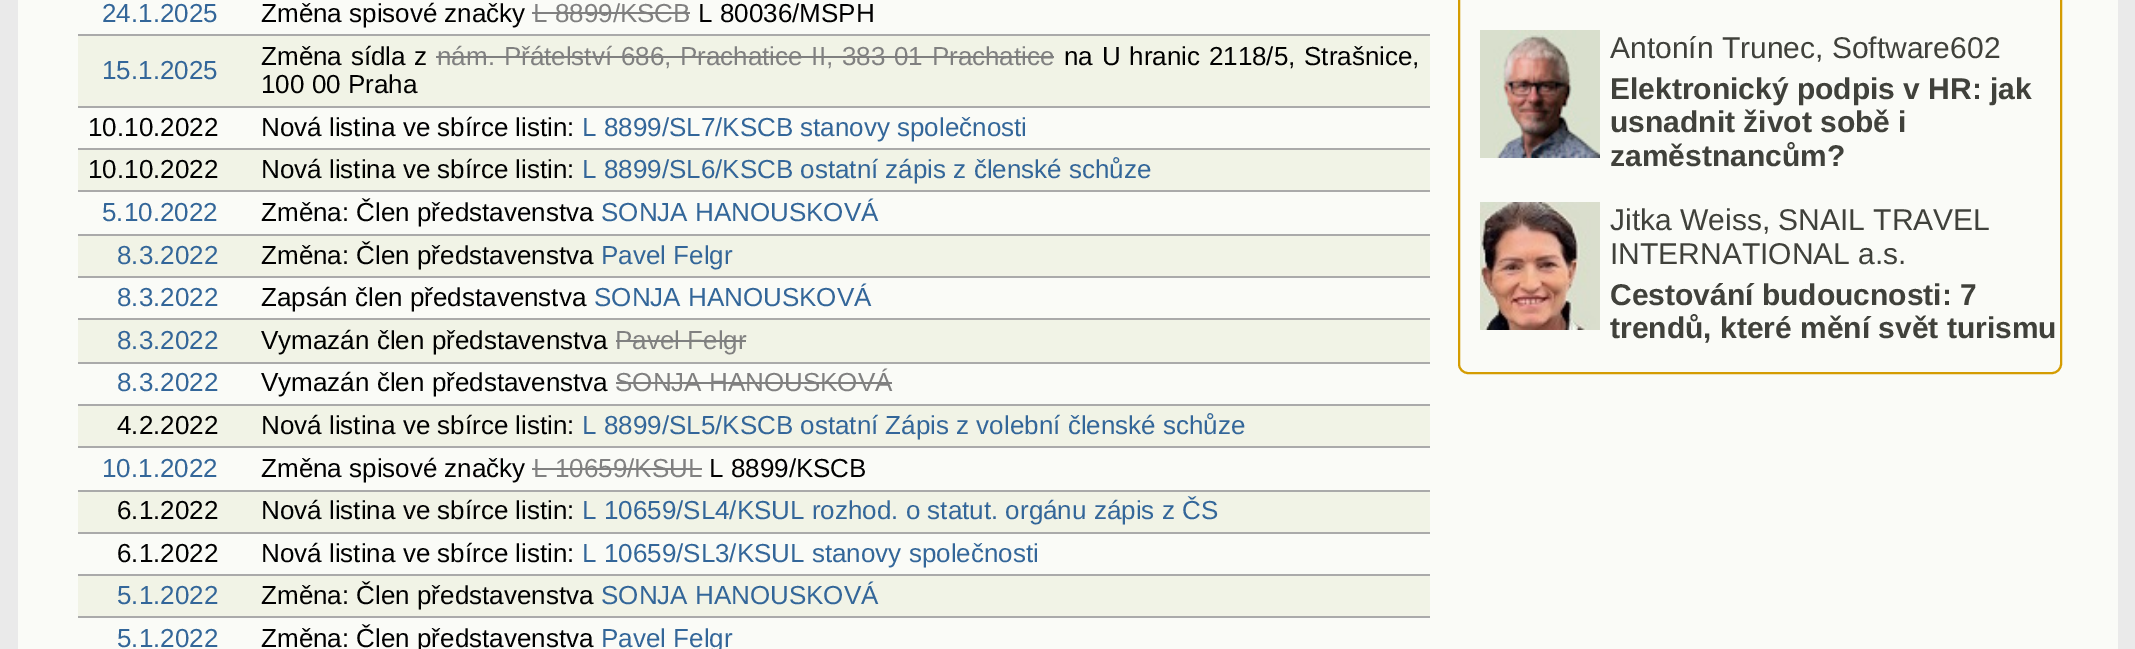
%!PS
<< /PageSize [2135 649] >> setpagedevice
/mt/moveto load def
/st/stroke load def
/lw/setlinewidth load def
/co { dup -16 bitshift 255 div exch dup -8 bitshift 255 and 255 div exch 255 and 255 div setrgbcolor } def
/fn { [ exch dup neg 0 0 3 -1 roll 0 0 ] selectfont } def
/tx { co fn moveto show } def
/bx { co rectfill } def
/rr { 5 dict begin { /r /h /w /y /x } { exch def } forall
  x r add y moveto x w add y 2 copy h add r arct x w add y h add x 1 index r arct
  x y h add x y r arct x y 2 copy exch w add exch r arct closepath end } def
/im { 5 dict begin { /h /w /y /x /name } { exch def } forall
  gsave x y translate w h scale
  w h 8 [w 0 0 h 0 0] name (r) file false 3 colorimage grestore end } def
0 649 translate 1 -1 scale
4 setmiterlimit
0 0 2135 649 16#EAEAEA bx
18 0 2100 649 16#FAFBF7 bx
78 34 1352 2 16#AAAAAA bx
532 12 158 2 16#808080 bx
78 36 1352 70 16#F1F3E6 bx
78 106 1352 2 16#AAAAAA bx
436 56 618 2 16#808080 bx
78 148 1352 2 16#AAAAAA bx
78 150 1352 40 16#F1F3E6 bx
78 190 1352 2 16#AAAAAA bx
78 234 1352 2 16#AAAAAA bx
78 236 1352 40 16#F1F3E6 bx
78 276 1352 2 16#AAAAAA bx
78 318 1352 2 16#AAAAAA bx
78 320 1352 42 16#F1F3E6 bx
78 362 1352 2 16#AAAAAA bx
616 340 130 2 16#808080 bx
78 404 1352 2 16#AAAAAA bx
616 382 276 2 16#808080 bx
78 406 1352 40 16#F1F3E6 bx
78 446 1352 2 16#AAAAAA bx
78 490 1352 2 16#AAAAAA bx
532 468 170 2 16#808080 bx
78 492 1352 40 16#F1F3E6 bx
78 532 1352 2 16#AAAAAA bx
78 574 1352 2 16#AAAAAA bx
78 576 1352 40 16#F1F3E6 bx
78 616 1352 2 16#AAAAAA bx
16#D49C01 co
2 lw
1459 -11 602 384 9 rr st
(media/1.raw) 1480 30 120 128 im
(media/2.raw) 1480 202 120 128 im
(24.1.2025) 102 22 /LiberationSans-Regular 26 16#336699 tx
(Změna spisové značky) 261 22 /LiberationSans-Regular 26 16#000000 tx
(L 8899/KSCB) 533 22 /LiberationSans-Regular 26 16#808080 tx
(L 80036/MSPH) 698 22 /LiberationSans-Regular 26 16#000000 tx
(15.1.2025) 102 79 /LiberationSans-Regular 26 16#336699 tx
16#000000 co
261 65 mt 1.5 0 32 (Změna sídla z) widthshow
16#808080 co
437 65 mt 1.5 0 32 (nám. Přátelství 686, Prachatice II, 383 01 Prachatice) widthshow
16#000000 co
1064 65 mt 1.5 0 32 (na U hranic 2118/5, Strašnice,) widthshow
(100 00 Praha) 261 93 /LiberationSans-Regular 26 16#000000 tx
(10.10.2022) 88 136 /LiberationSans-Regular 26 16#000000 tx
(Nová listina ve sbírce listin:) 261 136 /LiberationSans-Regular 26 16#000000 tx
(L 8899/SL7/KSCB stanovy společnosti) 582 136 /LiberationSans-Regular 26 16#336699 tx
(10.10.2022) 88 178 /LiberationSans-Regular 26 16#000000 tx
(Nová listina ve sbírce listin:) 261 178 /LiberationSans-Regular 26 16#000000 tx
(L 8899/SL6/KSCB ostatní zápis z členské schůze) 582 178 /LiberationSans-Regular 26 16#336699 tx
(5.10.2022) 102 221 /LiberationSans-Regular 26 16#336699 tx
(Změna: Člen představenstva) 261 221 /LiberationSans-Regular 26 16#000000 tx
(SONJA HANOUSKOVÁ) 601 221 /LiberationSans-Regular 26 16#336699 tx
(8.3.2022) 117 264 /LiberationSans-Regular 26 16#336699 tx
(Změna: Člen představenstva) 261 264 /LiberationSans-Regular 26 16#000000 tx
(Pavel Felgr) 601 264 /LiberationSans-Regular 26 16#336699 tx
(8.3.2022) 117 306 /LiberationSans-Regular 26 16#336699 tx
(Zapsán člen představenstva) 261 306 /LiberationSans-Regular 26 16#000000 tx
(SONJA HANOUSKOVÁ) 594 306 /LiberationSans-Regular 26 16#336699 tx
(8.3.2022) 117 349 /LiberationSans-Regular 26 16#336699 tx
(Vymazán člen představenstva) 261 349 /LiberationSans-Regular 26 16#000000 tx
(Pavel Felgr) 615 349 /LiberationSans-Regular 26 16#808080 tx
(8.3.2022) 117 391 /LiberationSans-Regular 26 16#336699 tx
(Vymazán člen představenstva) 261 391 /LiberationSans-Regular 26 16#000000 tx
(SONJA HANOUSKOVÁ) 615 391 /LiberationSans-Regular 26 16#808080 tx
(4.2.2022) 117 434 /LiberationSans-Regular 26 16#000000 tx
(Nová listina ve sbírce listin:) 261 434 /LiberationSans-Regular 26 16#000000 tx
(L 8899/SL5/KSCB ostatní Zápis z volební členské schůze) 582 434 /LiberationSans-Regular 26 16#336699 tx
(10.1.2022) 102 477 /LiberationSans-Regular 26 16#336699 tx
(Změna spisové značky) 261 477 /LiberationSans-Regular 26 16#000000 tx
(L 10659/KSUL) 533 477 /LiberationSans-Regular 26 16#808080 tx
(L 8899/KSCB) 709 477 /LiberationSans-Regular 26 16#000000 tx
(6.1.2022) 117 519 /LiberationSans-Regular 26 16#000000 tx
(Nová listina ve sbírce listin:) 261 519 /LiberationSans-Regular 26 16#000000 tx
(L 10659/SL4/KSUL rozhod. o statut. orgánu zápis z ČS) 582 519 /LiberationSans-Regular 26 16#336699 tx
(6.1.2022) 117 562 /LiberationSans-Regular 26 16#000000 tx
(Nová listina ve sbírce listin:) 261 562 /LiberationSans-Regular 26 16#000000 tx
(L 10659/SL3/KSUL stanovy společnosti) 582 562 /LiberationSans-Regular 26 16#336699 tx
(5.1.2022) 117 604 /LiberationSans-Regular 26 16#336699 tx
(Změna: Člen představenstva) 261 604 /LiberationSans-Regular 26 16#000000 tx
(SONJA HANOUSKOVÁ) 601 604 /LiberationSans-Regular 26 16#336699 tx
(5.1.2022) 117 647 /LiberationSans-Regular 26 16#336699 tx
(Změna: Člen představenstva) 261 647 /LiberationSans-Regular 26 16#000000 tx
(Pavel Felgr) 601 647 /LiberationSans-Regular 26 16#336699 tx
(Antonín Trunec, Software602) 1610 58 /LiberationSans-Regular 30 16#40413B tx
(Elektronický podpis v HR: jak) 1610 99 /LiberationSans-Bold 30 16#40413B tx
(usnadnit život sobě i) 1610 132 /LiberationSans-Bold 30 16#40413B tx
(zaměstnancům?) 1610 166 /LiberationSans-Bold 30 16#40413B tx
(Jitka Weiss, SNAIL TRAVEL) 1610 230 /LiberationSans-Regular 30 16#40413B tx
(INTERNATIONAL a.s.) 1610 264 /LiberationSans-Regular 30 16#40413B tx
(Cestování budoucnosti: 7) 1610 305 /LiberationSans-Bold 30 16#40413B tx
(trendů, které mění svět turismu) 1610 338 /LiberationSans-Bold 30 16#40413B tx
showpage
